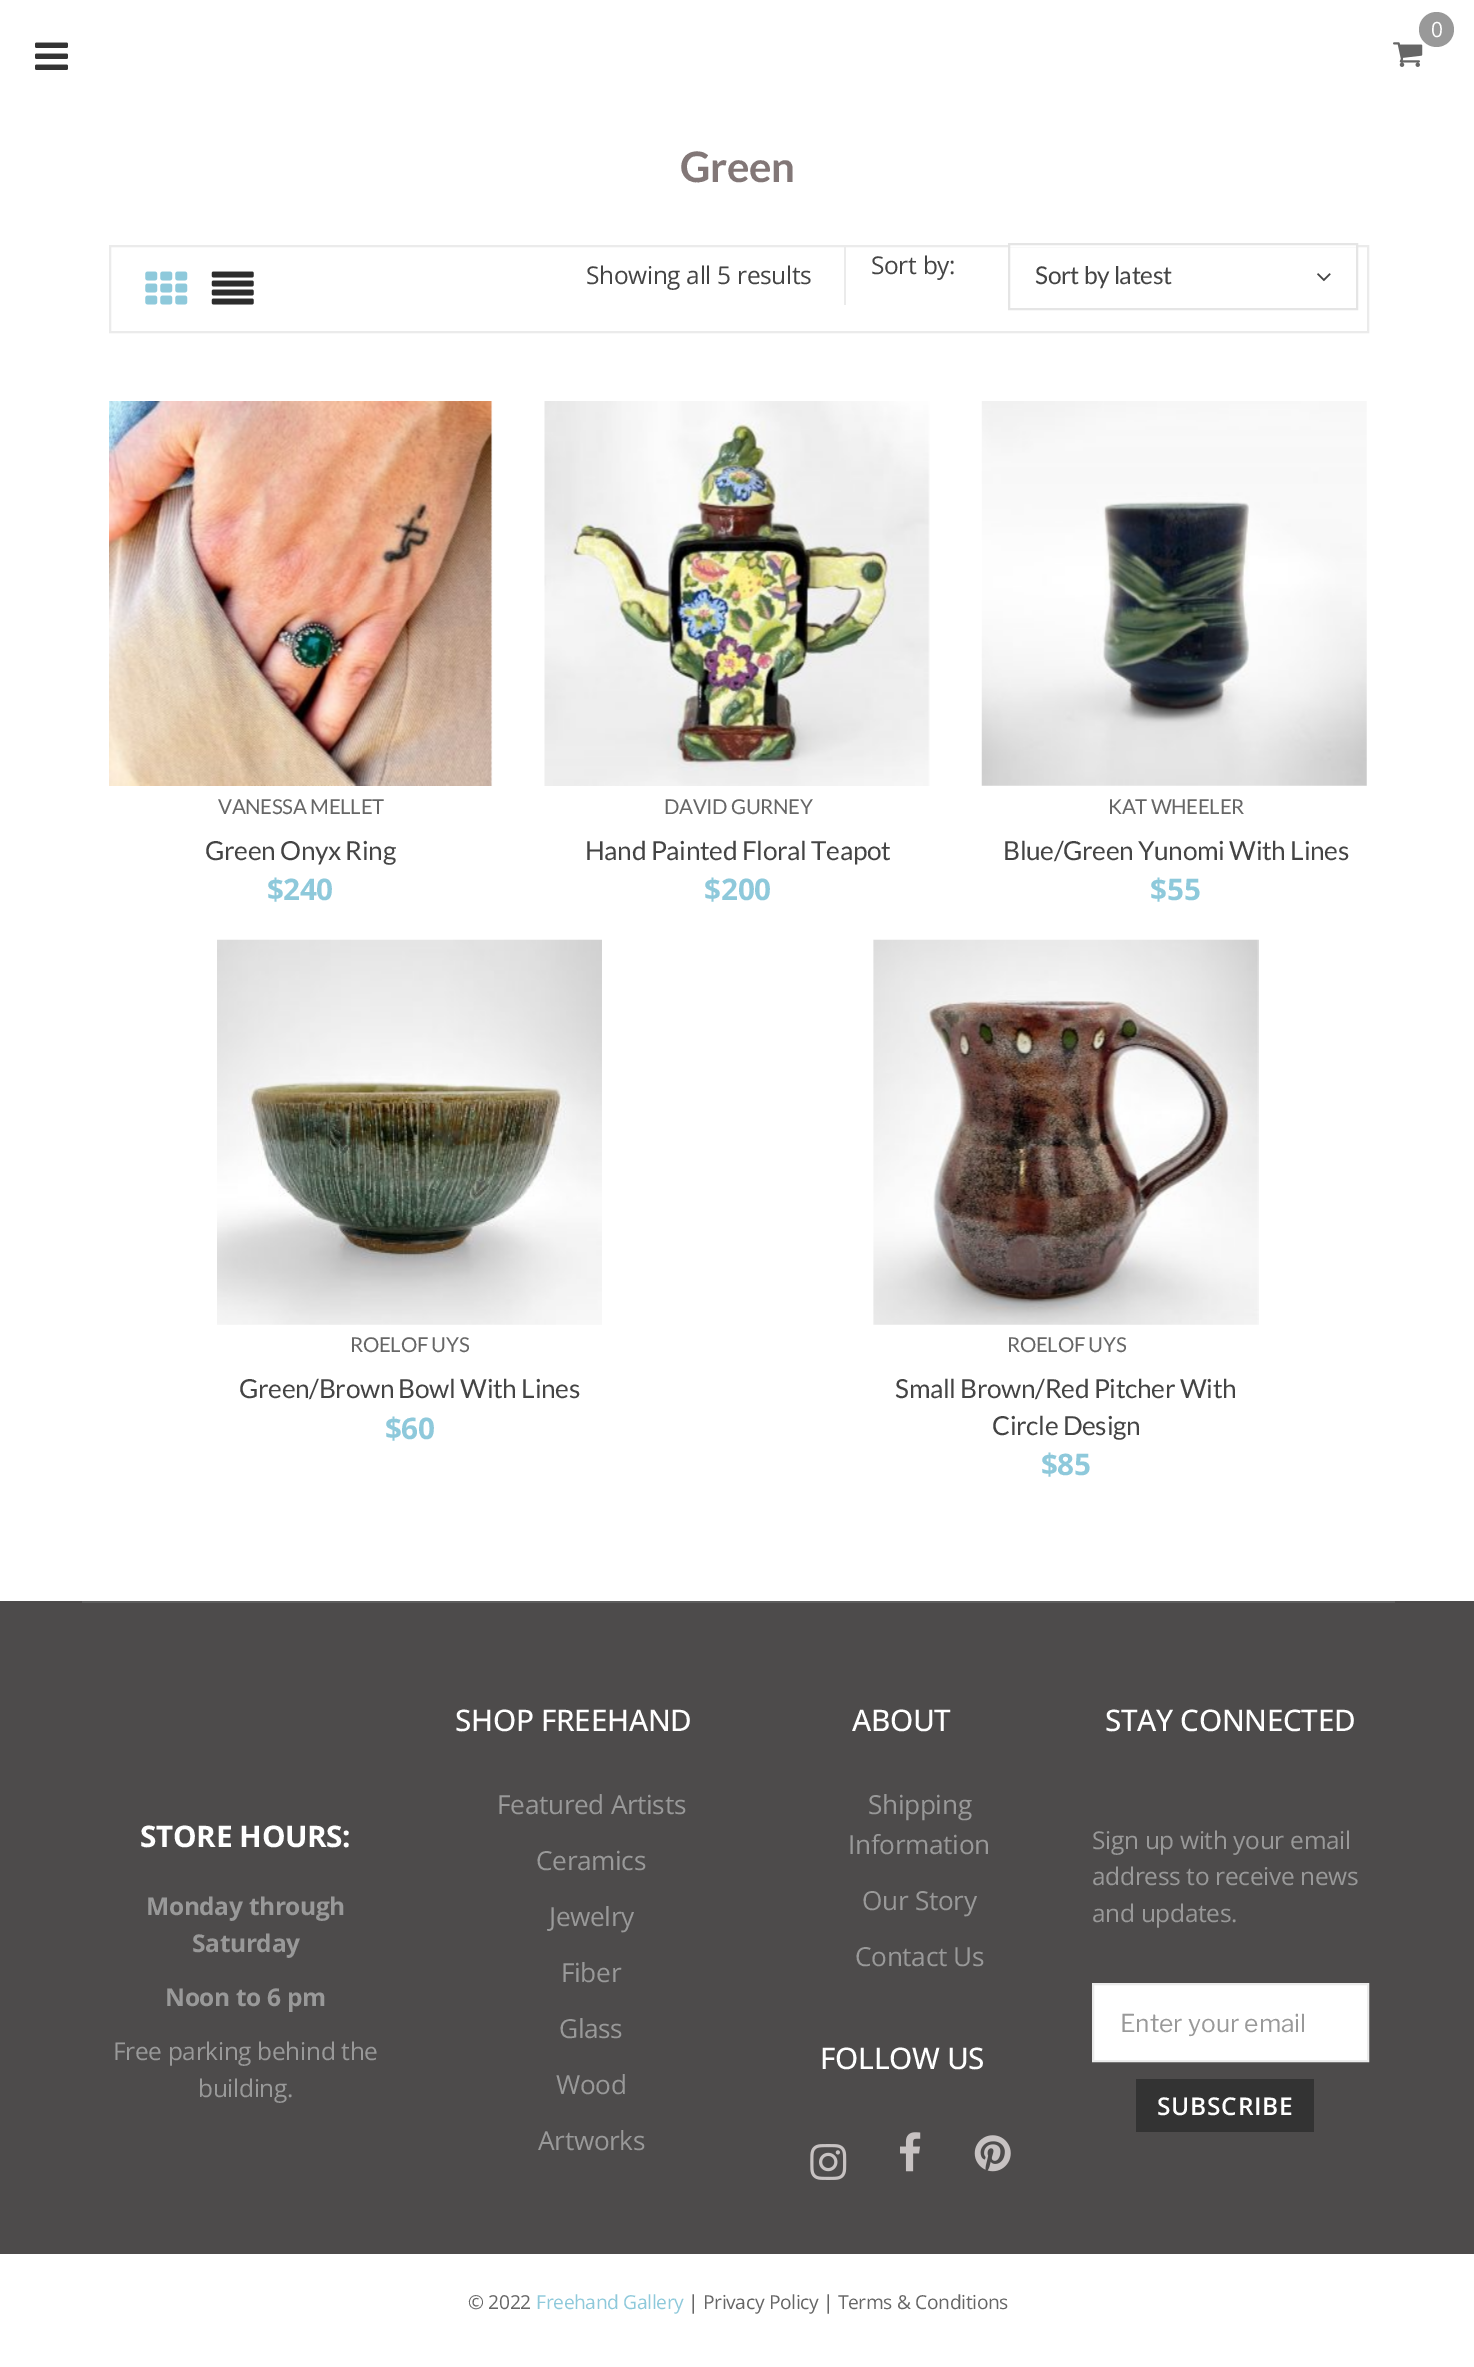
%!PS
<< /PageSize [1474 2367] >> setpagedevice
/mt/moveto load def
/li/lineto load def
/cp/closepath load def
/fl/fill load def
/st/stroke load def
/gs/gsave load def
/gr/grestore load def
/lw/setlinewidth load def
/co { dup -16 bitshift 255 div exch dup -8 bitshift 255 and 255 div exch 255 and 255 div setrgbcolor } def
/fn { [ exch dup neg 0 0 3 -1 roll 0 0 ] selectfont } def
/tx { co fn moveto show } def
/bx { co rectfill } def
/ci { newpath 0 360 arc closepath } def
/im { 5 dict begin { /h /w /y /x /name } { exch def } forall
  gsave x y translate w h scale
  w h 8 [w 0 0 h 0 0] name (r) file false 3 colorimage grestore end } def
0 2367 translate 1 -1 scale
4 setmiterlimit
0 0 1474 2367 16#FFFFFF bx
(media/1.raw) 1393 42 30 25 im
16#999999 co
1436.5 29.5 17.5 ci fl
(media/2.raw) 35 42 33 28 im
16#EBEBEB co
2 lw
110 246 1258 86 rectstroke
(media/3.raw) 145 271 43 34 im
(media/4.raw) 211 271 43 34 im
844 247 2 58 16#EBEBEB bx
1010 245 346 2 16#FFFFFF bx
16#E5E5E5 co
1009 244 348 65 rectstroke
(media/5.raw) 1317 273 14 9 im
(media/6.raw) 109 401 384 385 im
(media/7.raw) 544 401 386 385 im
(media/8.raw) 981 401 386 385 im
(media/9.raw) 217 939 385 386 im
(media/10.raw) 873 939 386 386 im
0 1601 1474 653 16#4D4B4B bx
82 1601 1313 2 16#5D5D5D bx
(media/11.raw) 810 2144 37 36 im
(media/12.raw) 900 2132 21 40 im
(media/13.raw) 974 2135 37 37 im
16#FFFFFF co
1093 1984 mt 1368 1984 li 1368 2061 li 1093 2061 li cp gs fl gr
16#EBEBEB co
st
1136 2079 178 53 16#333333 bx
/OpenSans-Regular 21 fn
16#FFFFFF co
1431 37 mt -.35 0 (0) ashow
/Lato-Bold 42 fn
16#827777 co
680 182 mt -.35 0 (Green) ashow
/OpenSans-Regular 24.5 fn
16#444444 co
586 284 mt -.35 0 (Showing all 5 results) ashow
871 274 mt -.35 0 (Sort by:) ashow
/Lato-Regular 24.5 fn
1035 284 mt -.35 0 (Sort by latest) ashow
/Lato-Regular 20.5 fn
16#666666 co
218 814 mt -.35 0 (VANESSA MELLET) ashow
/Lato-Regular 26.25 fn
16#444444 co
205 860 mt -.35 0 (Green Onyx Ring) ashow
/OpenSans-Bold 29.75 fn
16#8EC9DB co
267 900 mt -.35 0 ($) ashow
283 900 mt -.35 0 (240) ashow
/Lato-Regular 20.5 fn
16#666666 co
664 814 mt -.35 0 (DAVID GURNEY) ashow
/Lato-Regular 26.25 fn
16#444444 co
585 860 mt -.35 0 (Hand Painted Floral Teapot) ashow
/OpenSans-Bold 29.75 fn
16#8EC9DB co
704 900 mt -.35 0 ($) ashow
721 900 mt -.35 0 (200) ashow
/Lato-Regular 20.5 fn
16#666666 co
1108 814 mt -.35 0 (KAT WHEELER) ashow
/Lato-Regular 26.25 fn
16#444444 co
1003 860 mt -.35 0 (Blue/Green Yunomi With Lines) ashow
/OpenSans-Bold 29.75 fn
16#8EC9DB co
1150 900 mt -.35 0 ($) ashow
1167 900 mt -.35 0 (55) ashow
/Lato-Regular 20.5 fn
16#666666 co
350 1352 mt -.35 0 (ROELOF UYS) ashow
/Lato-Regular 26.25 fn
16#444444 co
239 1398 mt -.35 0 (Green/Brown Bowl With Lines) ashow
/OpenSans-Bold 29.75 fn
16#8EC9DB co
385 1439 mt -.35 0 ($) ashow
401 1439 mt -.35 0 (60) ashow
/Lato-Regular 20.5 fn
16#666666 co
1007 1352 mt -.35 0 (ROELOF UYS) ashow
/Lato-Regular 26.25 fn
16#444444 co
895 1398 mt -.35 0 (Small Brown/Red Pitcher With) ashow
992 1435 mt -.35 0 (Circle Design) ashow
/OpenSans-Bold 29.75 fn
16#8EC9DB co
1041 1475 mt -.35 0 ($) ashow
1057 1475 mt -.35 0 (85) ashow
16#FFFFFF co
140 1847 mt -.35 0 (STORE HOURS:) ashow
/OpenSans-Bold 24.5 fn
16#999999 co
146 1915 mt -.35 0 (Monday through) ashow
192 1952 mt -.35 0 (Saturday) ashow
165 2006 mt -.35 0 (Noon to 6 pm) ashow
/OpenSans-Regular 24.5 fn
113 2060 mt -.35 0 (Free parking behind the) ashow
198 2097 mt -.35 0 (building.) ashow
/OpenSans-Medium 29.75 fn
16#FFFFFF co
455 1731 mt -.35 0 (SHOP FREEHAND) ashow
/OpenSans-Regular 26.25 fn
16#999999 co
497 1814 mt -.35 0 (Featured Artists) ashow
536 1870 mt -.35 0 (Ceramics) ashow
549 1926 mt -.35 0 (Jewelry) ashow
561 1982 mt -.35 0 (Fiber) ashow
559 2038 mt -.35 0 (Glass) ashow
556 2094 mt -.35 0 (Wood) ashow
538 2150 mt -.35 0 (Artworks) ashow
/OpenSans-Medium 29.75 fn
16#FFFFFF co
852 1731 mt -.35 0 (ABOUT) ashow
/OpenSans-Regular 26.25 fn
16#999999 co
868 1814 mt -.35 0 (Shipping) ashow
848 1854 mt -.35 0 (Information) ashow
862 1910 mt -.35 0 (Our Story) ashow
855 1966 mt -.35 0 (Contact Us) ashow
/OpenSans-Medium 29.75 fn
16#FFFFFF co
820 2069 mt -.35 0 (FOLLOW US) ashow
1105 1731 mt -.35 0 (STAY CONNECTED) ashow
/OpenSans-Regular 24.5 fn
16#999999 co
1092 1849 mt -.35 0 (Sign up with your email) ashow
1092 1885 mt -.35 0 (address to receive news) ashow
1092 1922 mt -.35 0 (and updates.) ashow
(Enter your email) 1120 2032 /LibreFranklin-Regular 24.5 16#999999 tx
/OpenSans-SemiBold 24.5 fn
16#FFFFFF co
1157 2115 mt .75 0 (SUBSCRIBE) ashow
/OpenSans-Regular 19.25 fn
16#666666 co
468 2309 mt -.35 0 (© 2022) ashow
16#8EC9DB co
536 2309 mt -.35 0 (Freehand Gallery) ashow
16#666666 co
688 2309 mt -.35 0 (| Privacy Policy | Terms & Conditions) ashow
showpage
